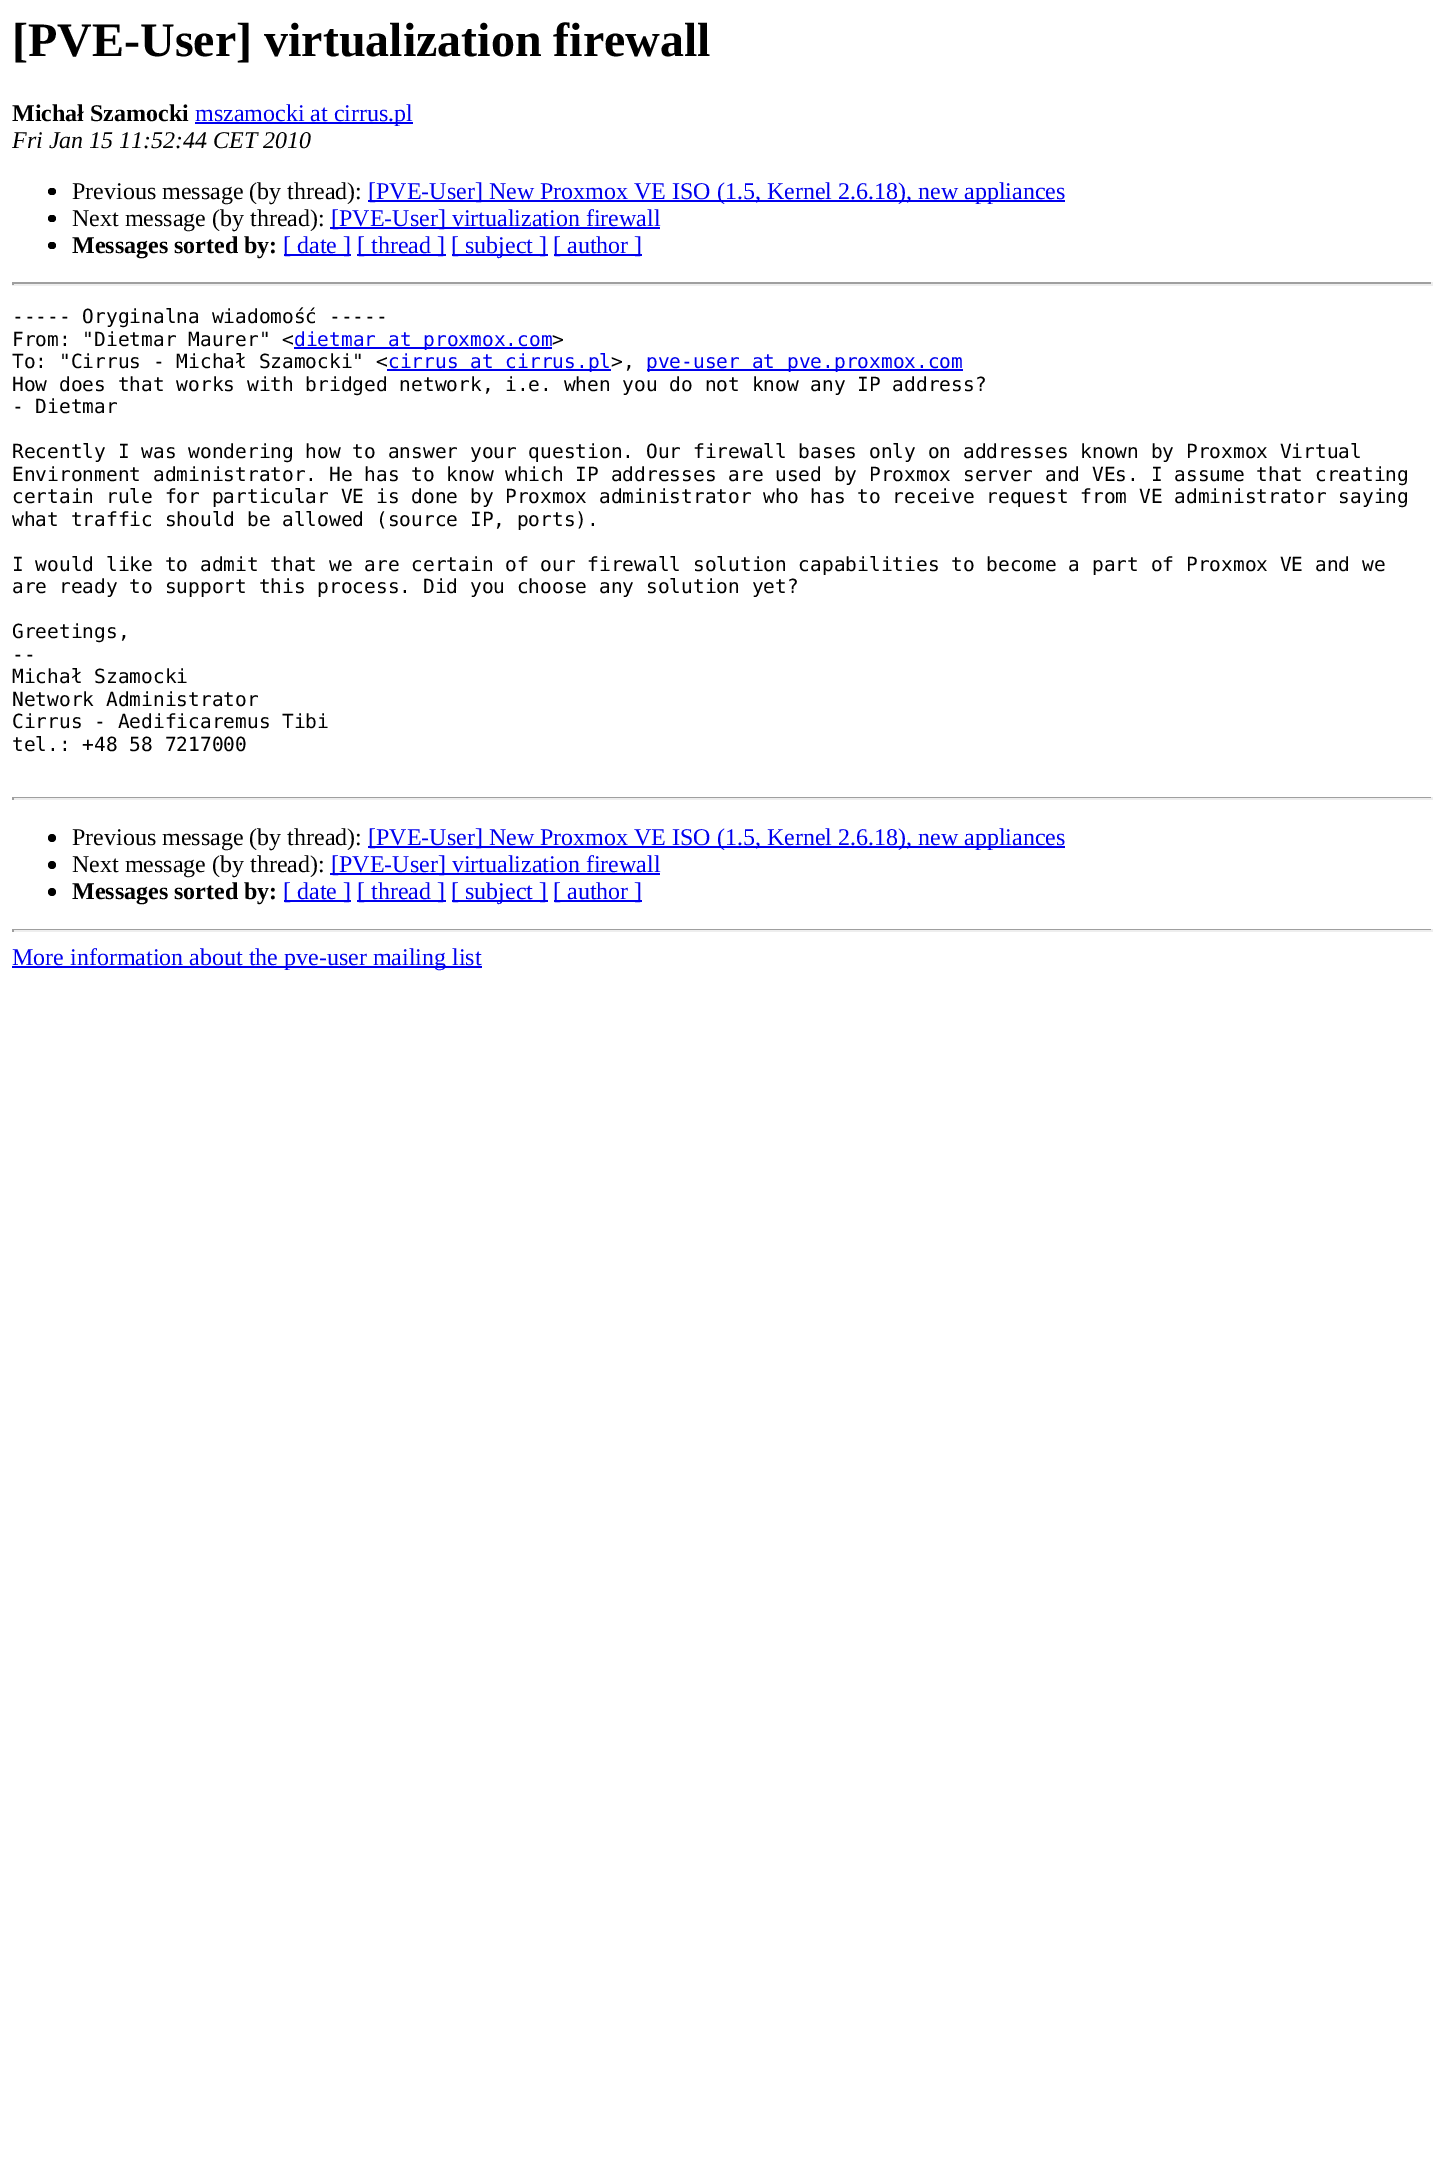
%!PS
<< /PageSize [1444 2178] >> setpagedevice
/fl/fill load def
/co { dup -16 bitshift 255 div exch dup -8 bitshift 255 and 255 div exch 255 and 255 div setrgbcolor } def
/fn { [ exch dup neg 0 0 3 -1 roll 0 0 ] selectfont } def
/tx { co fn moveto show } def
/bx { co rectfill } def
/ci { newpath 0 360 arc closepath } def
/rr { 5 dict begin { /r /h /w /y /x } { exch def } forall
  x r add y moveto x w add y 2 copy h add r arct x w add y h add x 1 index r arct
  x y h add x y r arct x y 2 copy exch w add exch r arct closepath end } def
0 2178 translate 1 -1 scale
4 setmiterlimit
0 0 1444 2178 16#FFFFFF bx
195 122 218 2 16#0000EE bx
16#000000 co
48 188 8 7 3.5 rr fl
368 200 697 2 16#0000EE bx
16#000000 co
48 215 8 7 3.5 rr fl
330 227 330 2 16#0000EE bx
16#000000 co
48 242 8 7 3.5 rr fl
284 254 67 2 16#0000EE bx
357 254 89 2 16#0000EE bx
452 254 96 2 16#0000EE bx
554 254 88 2 16#0000EE bx
12 282 1421 2 16#9F9F9F bx
1431 282 2 3 16#EEEEEE bx
12 284 1421 2 16#EEEEEE bx
12 282 2 3 16#9F9F9F bx
294 347 258 2 16#0000EE bx
387 369 224 2 16#0000EE bx
647 369 316 2 16#0000EE bx
12 797 1421 1 16#9F9F9F bx
1431 797 2 3 16#EEEEEE bx
12 798 1421 2 16#EEEEEE bx
12 797 2 3 16#9F9F9F bx
16#000000 co
52 838 4 ci fl
368 846 697 2 16#0000EE bx
16#000000 co
52 865 4 ci fl
330 873 330 2 16#0000EE bx
16#000000 co
52 892 4 ci fl
284 900 67 2 16#0000EE bx
357 900 89 2 16#0000EE bx
452 900 96 2 16#0000EE bx
554 900 88 2 16#0000EE bx
12 929 1421 1 16#9F9F9F bx
1431 929 2 3 16#EEEEEE bx
12 930 1421 2 16#EEEEEE bx
12 929 2 3 16#9F9F9F bx
12 966 470 2 16#0000EE bx
([PVE-User] virtualization firewall) 12 56 /LiberationSerif-Bold 48 16#000000 tx
(Michał Szamocki) 12 121 /LiberationSerif-Bold 24 16#000000 tx
(mszamocki at cirrus.pl) 195 121 /LiberationSerif-Regular 24 16#0000EE tx
(Fri Jan 15 11:52:44 CET 2010) 12 148 /LiberationSerif-Italic 24 16#000000 tx
(Previous message \(by thread\):) 72 199 /LiberationSerif-Regular 24 16#000000 tx
([PVE-User] New Proxmox VE ISO \(1.5, Kernel 2.6.18\), new appliances) 368 199 /LiberationSerif-Regular 24 16#0000EE tx
(Next message \(by thread\):) 72 226 /LiberationSerif-Regular 24 16#000000 tx
([PVE-User] virtualization firewall) 331 226 /LiberationSerif-Regular 24 16#0000EE tx
(Messages sorted by:) 72 253 /LiberationSerif-Bold 24 16#000000 tx
([ date ]) 283 253 /LiberationSerif-Regular 24 16#0000EE tx
([ thread ]) 357 253 /LiberationSerif-Regular 24 16#0000EE tx
([ subject ]) 451 253 /LiberationSerif-Regular 24 16#0000EE tx
([ author ]) 553 253 /LiberationSerif-Regular 24 16#0000EE tx
(----- Oryginalna wiadomość -----) 12 323 /DejaVuSansMono-Regular 19.5 16#000000 tx
(From: "Dietmar Maurer" <) 12 346 /DejaVuSansMono-Regular 19.5 16#000000 tx
(dietmar at proxmox.com) 294 346 /DejaVuSansMono-Regular 19.5 16#0000EE tx
(>) 552 346 /DejaVuSansMono-Regular 19.5 16#000000 tx
(To: "Cirrus - Michał Szamocki" <) 12 368 /DejaVuSansMono-Regular 19.5 16#000000 tx
(cirrus at cirrus.pl) 388 368 /DejaVuSansMono-Regular 19.5 16#0000EE tx
(>,) 611 368 /DejaVuSansMono-Regular 19.5 16#000000 tx
(pve-user at pve.proxmox.com) 646 368 /DejaVuSansMono-Regular 19.5 16#0000EE tx
(How does that works with bridged network, i.e. when you do not know any IP address?) 12 391 /DejaVuSansMono-Regular 19.5 16#000000 tx
(- Dietmar) 12 413 /DejaVuSansMono-Regular 19.5 16#000000 tx
(Recently I was wondering how to answer your question. Our firewall bases only on addresses known by Proxmox Virtual) 12 458 /DejaVuSansMono-Regular 19.5 16#000000 tx
(Environment administrator. He has to know which IP addresses are used by Proxmox server and VEs. I assume that creating) 12 481 /DejaVuSansMono-Regular 19.5 16#000000 tx
(certain rule for particular VE is done by Proxmox administrator who has to receive request from VE administrator saying) 12 503 /DejaVuSansMono-Regular 19.5 16#000000 tx
(what traffic should be allowed \(source IP, ports\).) 12 526 /DejaVuSansMono-Regular 19.5 16#000000 tx
(I would like to admit that we are certain of our firewall solution capabilities to become a part of Proxmox VE and we) 12 571 /DejaVuSansMono-Regular 19.5 16#000000 tx
(are ready to support this process. Did you choose any solution yet?) 12 593 /DejaVuSansMono-Regular 19.5 16#000000 tx
(Greetings,) 12 638 /DejaVuSansMono-Regular 19.5 16#000000 tx
(--) 12 661 /DejaVuSansMono-Regular 19.5 16#000000 tx
(Michał Szamocki) 12 683 /DejaVuSansMono-Regular 19.5 16#000000 tx
(Network Administrator) 12 706 /DejaVuSansMono-Regular 19.5 16#000000 tx
(Cirrus - Aedificaremus Tibi) 12 728 /DejaVuSansMono-Regular 19.5 16#000000 tx
(tel.: +48 58 7217000) 12 751 /DejaVuSansMono-Regular 19.5 16#000000 tx
(Previous message \(by thread\):) 72 845 /LiberationSerif-Regular 24 16#000000 tx
([PVE-User] New Proxmox VE ISO \(1.5, Kernel 2.6.18\), new appliances) 368 845 /LiberationSerif-Regular 24 16#0000EE tx
(Next message \(by thread\):) 72 872 /LiberationSerif-Regular 24 16#000000 tx
([PVE-User] virtualization firewall) 331 872 /LiberationSerif-Regular 24 16#0000EE tx
(Messages sorted by:) 72 899 /LiberationSerif-Bold 24 16#000000 tx
([ date ]) 283 899 /LiberationSerif-Regular 24 16#0000EE tx
([ thread ]) 357 899 /LiberationSerif-Regular 24 16#0000EE tx
([ subject ]) 451 899 /LiberationSerif-Regular 24 16#0000EE tx
([ author ]) 553 899 /LiberationSerif-Regular 24 16#0000EE tx
(More information about the pve-user mailing list) 12 965 /LiberationSerif-Regular 24 16#0000EE tx
showpage
